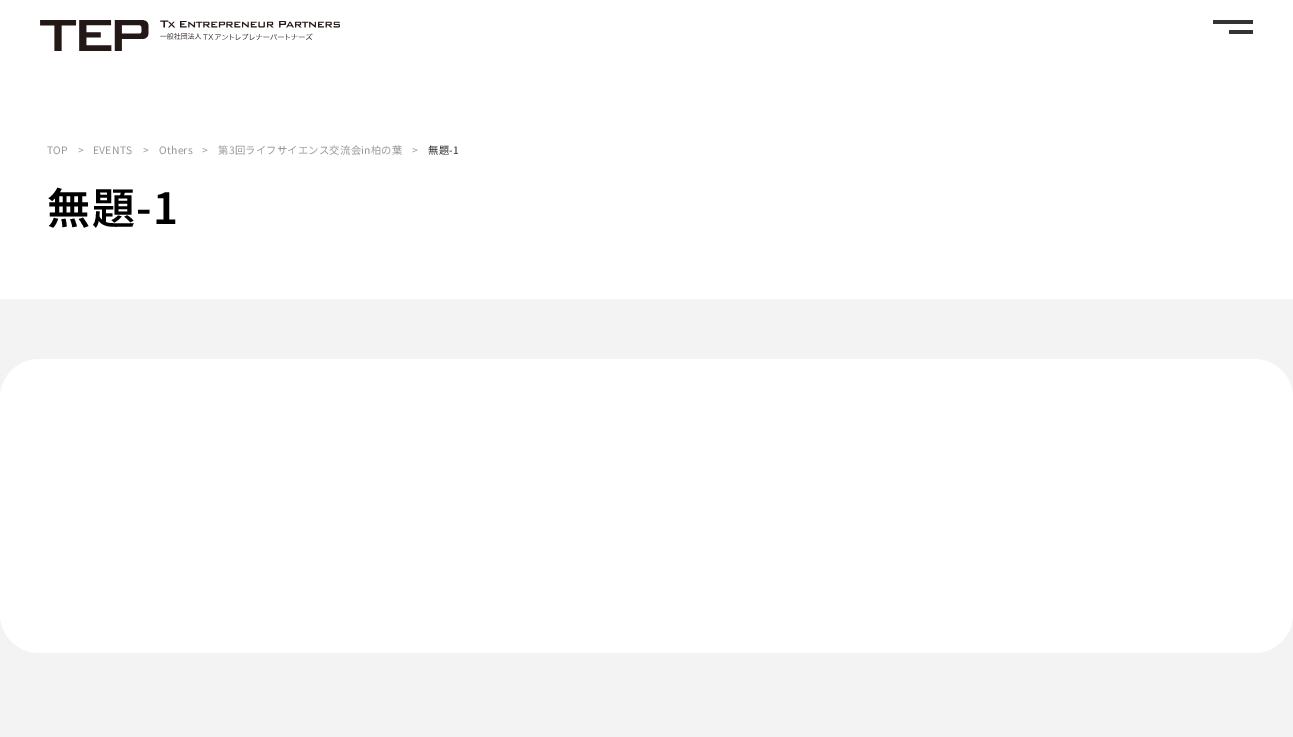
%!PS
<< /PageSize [1293 737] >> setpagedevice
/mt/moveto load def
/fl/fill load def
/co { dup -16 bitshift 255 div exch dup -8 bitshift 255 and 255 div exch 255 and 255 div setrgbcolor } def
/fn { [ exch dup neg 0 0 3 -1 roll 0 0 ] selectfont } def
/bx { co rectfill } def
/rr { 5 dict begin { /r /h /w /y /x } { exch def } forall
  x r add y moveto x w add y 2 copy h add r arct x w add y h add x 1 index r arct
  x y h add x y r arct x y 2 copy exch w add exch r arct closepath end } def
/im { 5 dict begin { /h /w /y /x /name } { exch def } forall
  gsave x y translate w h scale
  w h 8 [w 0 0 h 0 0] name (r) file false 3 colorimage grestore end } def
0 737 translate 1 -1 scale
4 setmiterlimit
0 0 1293 737 16#F3F3F3 bx
0 0 1293 299 16#FFFFFF bx
(media/1.raw) 40 20 300 31 im
1213 20 40 4 16#333333 bx
1229 30 24 4 16#333333 bx
16#FFFFFF co
0 359 1293 294 39 rr fl
/NotoSansJP-Regular 10.3 fn
16#999999 co
47 154 mt .25 0 (TOP) ashow
78 154 mt .25 0 (>) ashow
93 154 mt .25 0 (EVENTS) ashow
143 154 mt .25 0 (>) ashow
159 154 mt .25 0 (Others) ashow
202 154 mt .25 0 (>) ashow
218 154 mt .25 0 (第3回ライフサイエンス交流会in柏の葉) ashow
412 154 mt .25 0 (>) ashow
16#333333 co
428 154 mt .25 0 (無題-1) ashow
/NotoSansJP-SemiBold 43 fn
16#000000 co
47 224 mt 1.5 0 (無題-1) ashow
showpage
